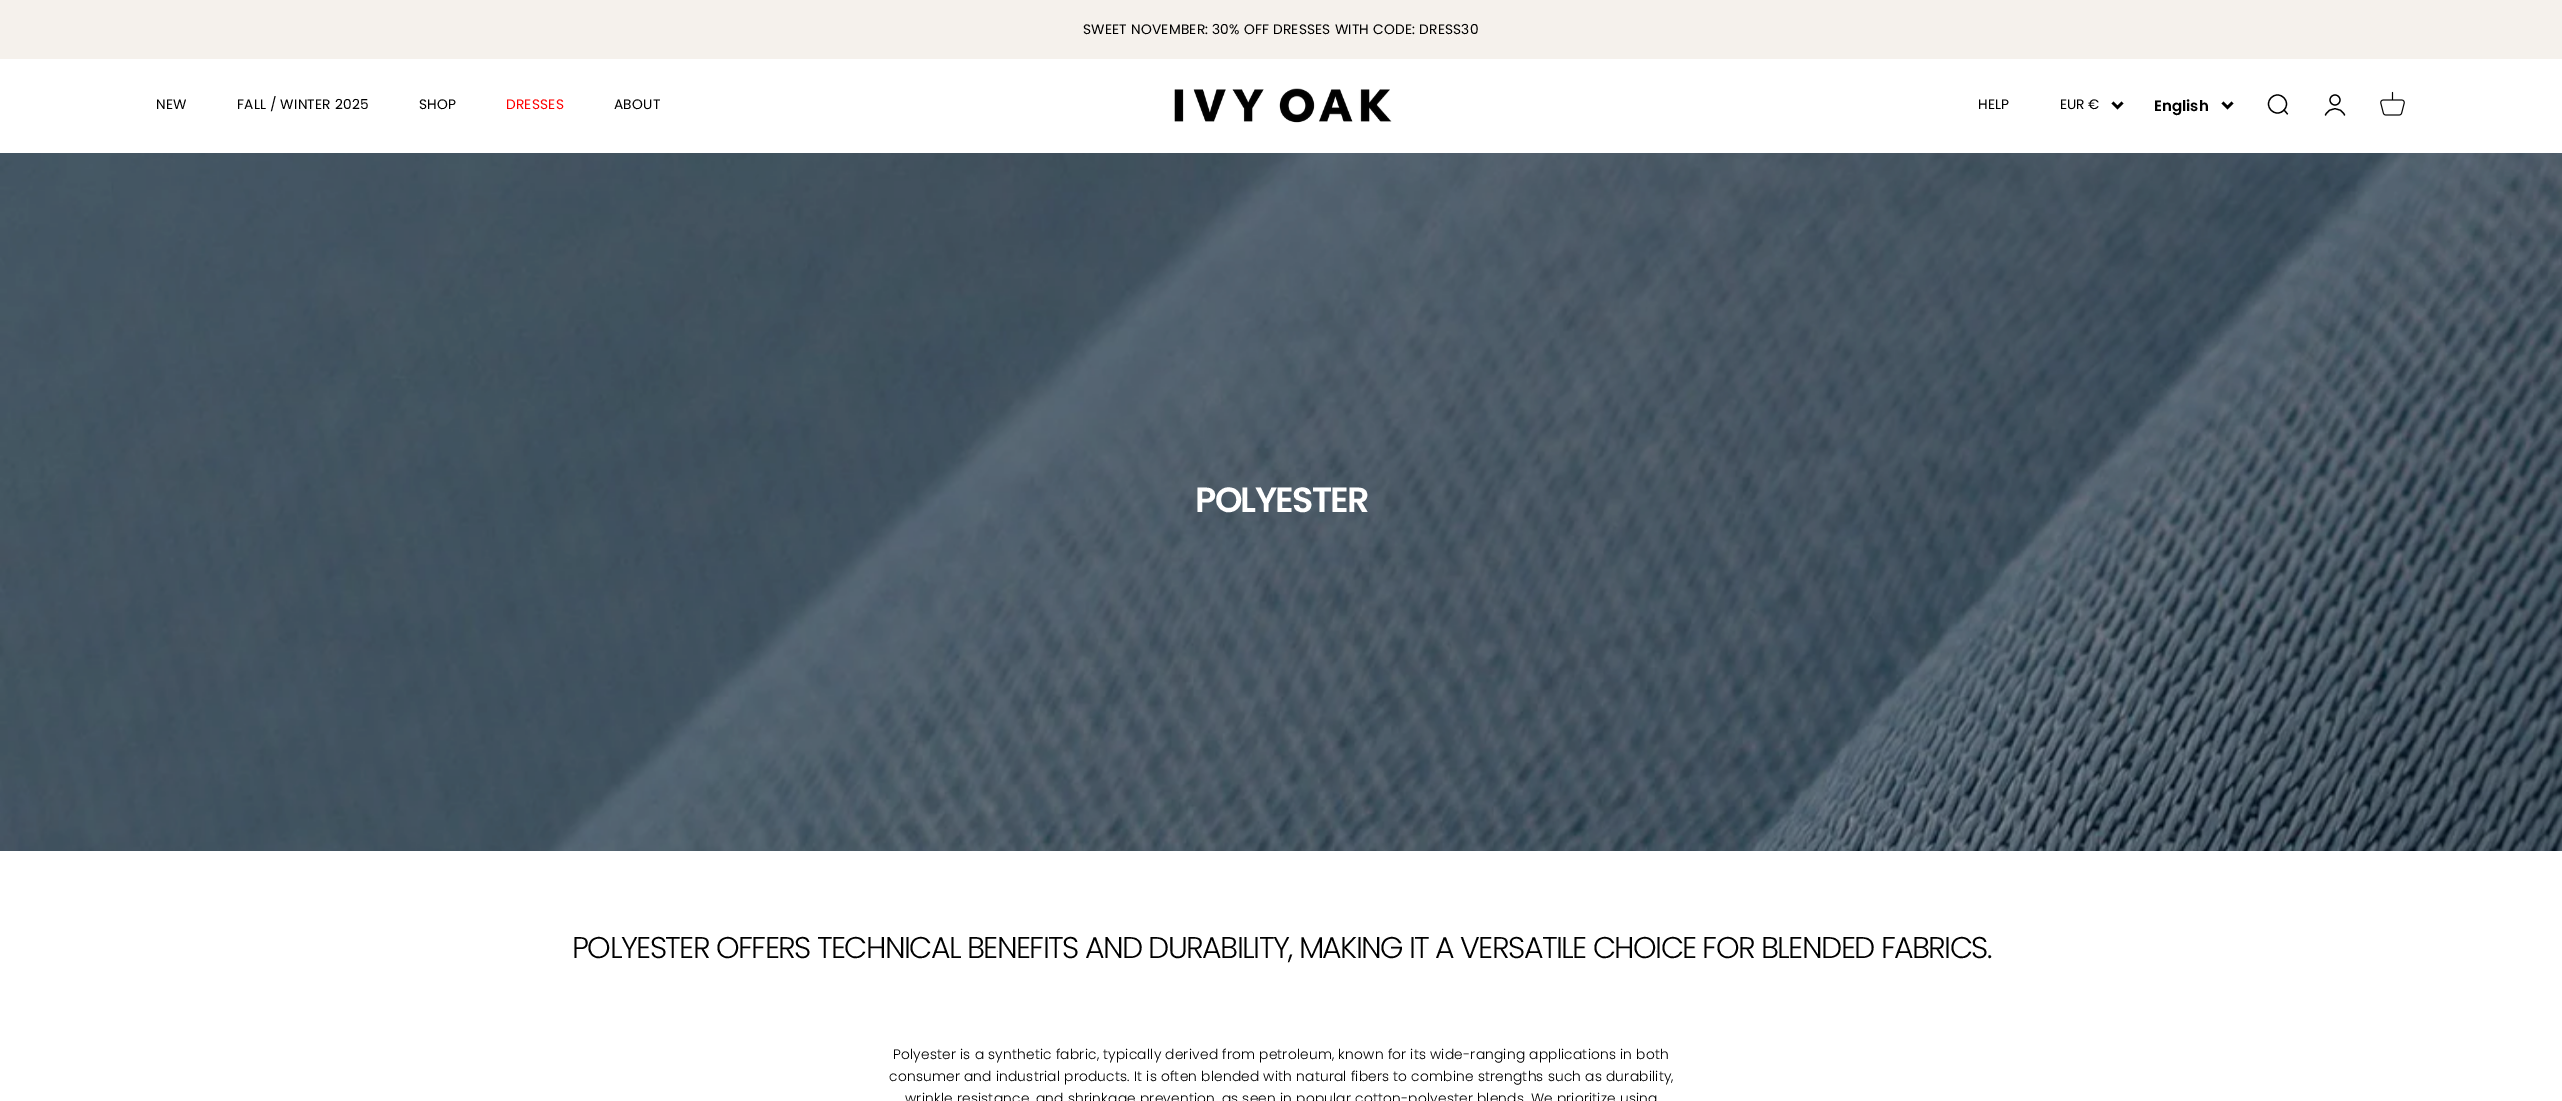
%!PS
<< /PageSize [2562 1101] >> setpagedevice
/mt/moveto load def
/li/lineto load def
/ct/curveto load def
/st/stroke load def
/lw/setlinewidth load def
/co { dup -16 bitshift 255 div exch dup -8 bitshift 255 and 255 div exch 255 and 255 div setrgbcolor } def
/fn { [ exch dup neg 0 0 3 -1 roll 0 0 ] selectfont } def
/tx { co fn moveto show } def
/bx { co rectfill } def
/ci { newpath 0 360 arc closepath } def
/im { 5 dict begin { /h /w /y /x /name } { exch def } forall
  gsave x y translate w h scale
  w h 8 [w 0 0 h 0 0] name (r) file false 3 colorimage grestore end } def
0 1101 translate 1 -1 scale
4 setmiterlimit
0 0 2562 1101 16#FFFFFF bx
0 0 2562 59 16#F5F1EC bx
(media/1.raw) 1174 88 218 35 im
16#000000 co
2.5 lw
2112.5 102.5 mt 2117.5 107.5 li 2122.5 102.5 li st
2222.5 102.5 mt 2227.5 107.5 li 2232.5 102.5 li st
1.2 lw
2277.5 104 9 ci st
1 setlinecap
1 setlinejoin
2284 110 mt 2287.5 114 li st
0 setlinecap
0 setlinejoin
2335 100 5 ci st
1 setlinecap
2325.5 115 mt 2329.5 106.5 2340.5 106.5 2344.5 115 ct st
(media/2.raw) 2380 91 25 25 im
(media/3.raw) 0 153 2562 698 im
/Poppins-Regular 13.75 fn
1083 34 mt .21 0 (SWEET NOVEMBER: 30% OFF DRESSES WITH CODE: DRESS30) ashow
156 109 mt .21 0 (NEW) ashow
237 109 mt .21 0 (FALL / WINTER 2025) ashow
419 109 mt .21 0 (SHOP) ashow
16#FF0000 co
506 109 mt .21 0 (DRESSES) ashow
16#000000 co
614 109 mt .21 0 (ABOUT) ashow
1978 109 mt .21 0 (HELP) ashow
(EUR €) 2060 109 /Poppins-Regular 13.75 16#000000 tx
(English) 2154 111 /Poppins-SemiBold 15 16#000000 tx
/Poppins-SemiBold 35 fn
16#FFFFFF co
1195 512 mt -1.75 0 (POLYESTER) ashow
/Poppins-Light 30 fn
16#000000 co
572 958 mt -1.5 0 (POLYESTER OFFERS TECHNICAL BENEFITS AND DURABILITY, MAKING IT A VERSATILE CHOICE FOR BLENDED FABRICS.) ashow
/Poppins-Light 13.75 fn
893 1059 mt .21 0 (Polyester is a synthetic fabric, typically derived from petroleum, known for its wide-ranging applications in both) ashow
889 1081 mt .21 0 (consumer and industrial products. It is often blended with natural fibers to combine strengths such as durability,) ashow
905 1103 mt .21 0 (wrinkle resistance, and shrinkage prevention, as seen in popular cotton-polyester blends. We prioritize using) ashow
showpage
